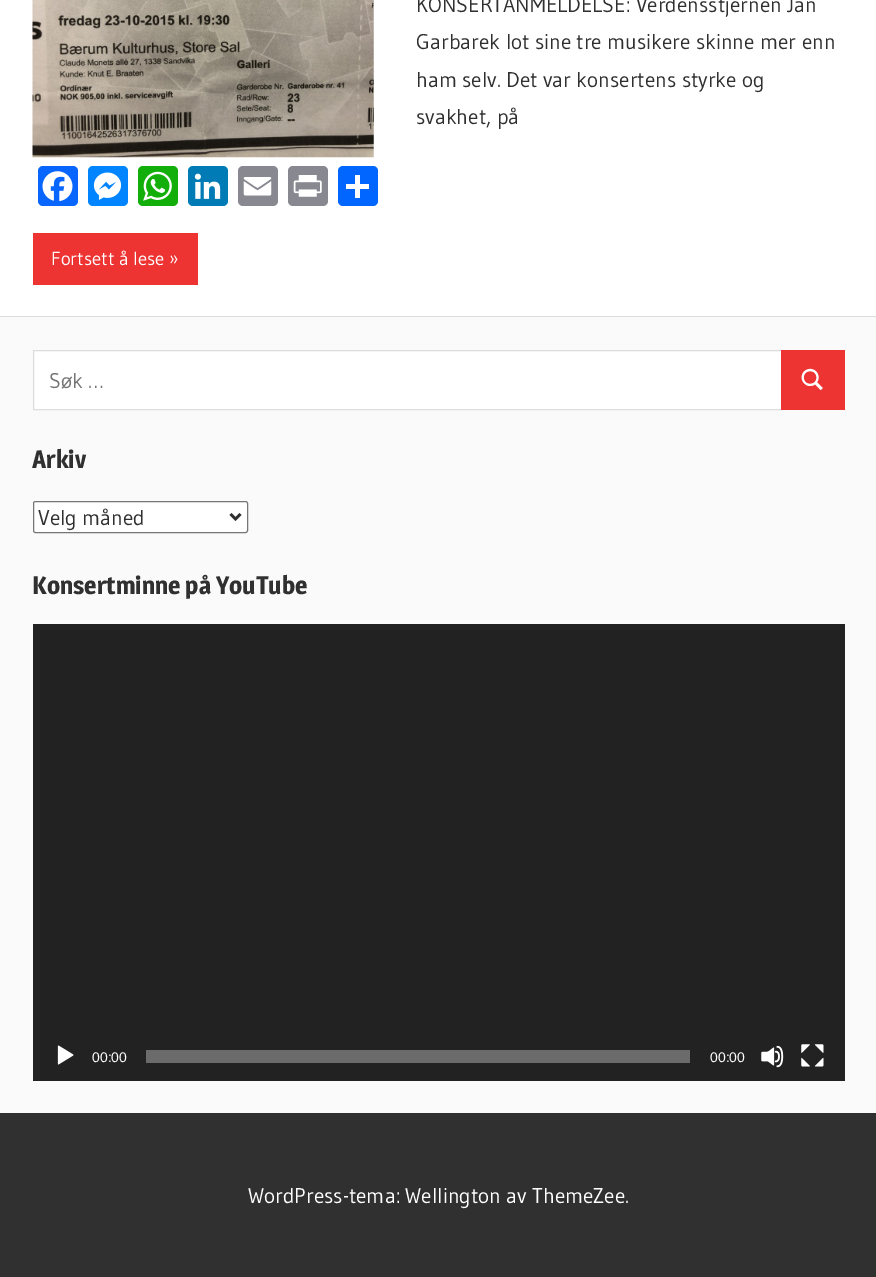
%!PS
<< /PageSize [876 1277] >> setpagedevice
/mt/moveto load def
/li/lineto load def
/fl/fill load def
/st/stroke load def
/gs/gsave load def
/gr/grestore load def
/lw/setlinewidth load def
/co { dup -16 bitshift 255 div exch dup -8 bitshift 255 and 255 div exch 255 and 255 div setrgbcolor } def
/fn { [ exch dup neg 0 0 3 -1 roll 0 0 ] selectfont } def
/tx { co fn moveto show } def
/bx { co rectfill } def
/rr { 5 dict begin { /r /h /w /y /x } { exch def } forall
  x r add y moveto x w add y 2 copy h add r arct x w add y h add x 1 index r arct
  x y h add x y r arct x y 2 copy exch w add exch r arct closepath end } def
/im { 5 dict begin { /h /w /y /x /name } { exch def } forall
  gsave x y translate w h scale
  w h 8 [w 0 0 h 0 0] name (r) file false 3 colorimage grestore end } def
0 1277 translate 1 -1 scale
4 setmiterlimit
0 0 876 1277 16#FFFFFF bx
(media/1.raw) 32 0 342 158 im
16#0866FF co
38 166 40 40 5 rr fl
(media/2.raw) 42 171 31 31 im
16#0084FF co
88 166 40 40 5 rr fl
(media/3.raw) 93 172 29 28 im
16#12AF0A co
138 166 40 40 5 rr fl
(media/4.raw) 143 171 29 30 im
16#007BB5 co
188 166 40 40 5 rr fl
(media/5.raw) 194 173 27 26 im
16#888990 co
238 166 40 40 5 rr fl
(media/6.raw) 243 177 29 19 im
288 166 40 40 5 rr fl
(media/7.raw) 293 175 29 22 im
16#0166FF co
338 166 40 40 5 rr fl
355 175 5 23 16#FFFFFF bx
346 184 23 5 16#FFFFFF bx
33 233 165 52 16#EE3333 bx
0 317 876 796 16#FAFAFA bx
0 316 876 1 16#DDDDDD bx
34 351 747 58 16#FFFFFF bx
16#DDDDDD co
33.5 350.5 749 59 rectstroke
781 350 64 60 16#EE3333 bx
(media/8.raw) 801 368 22 23 im
16#FFFFFF co
33.5 501.5 214 31 2 rr gs fl gr
16#767676 co
st
16#303030 co
2.5 lw
230.5 514 mt 235.5 519 li 240.5 514 li st
33 624 812 457 16#222222 bx
(media/9.raw) 57 1045 17 20 im
146 1050 544 13 16#6B6B6B bx
(media/10.raw) 761 1045 23 23 im
(media/11.raw) 801 1044 23 23 im
0 1113 876 164 16#303030 bx
(KONSERTANMELDELSE: Verdensstjernen Jan) 416 12 /Gudea-Regular 21.25 16#303030 tx
(Garbarek lot sine tre musikere skinne mer enn) 416 49 /Gudea-Regular 21.25 16#303030 tx
(ham selv. Det var konsertens styrke og) 416 87 /Gudea-Regular 21.25 16#303030 tx
(svakhet, på) 416 124 /Gudea-Regular 21.25 16#303030 tx
(Fortsett å lese ») 51 265 /Gudea-Regular 18.75 16#FFFFFF tx
(Søk …) 49 388 /Gudea-Regular 21.25 16#757575 tx
(Arkiv) 32 468 /Magra-Bold 25 16#303030 tx
(Velg måned) 38 525 /Gudea-Regular 21.25 16#303030 tx
(Konsertminne på YouTube) 32 594 /Magra-Bold 25 16#303030 tx
(00:00) 92 1062 /LiberationSans-Regular 14 16#FFFFFF tx
(00:00) 710 1062 /LiberationSans-Regular 14 16#FFFFFF tx
(WordPress-tema: Wellington av ThemeZee.) 248 1203 /Gudea-Regular 21.25 16#FFFFFF tx
showpage
